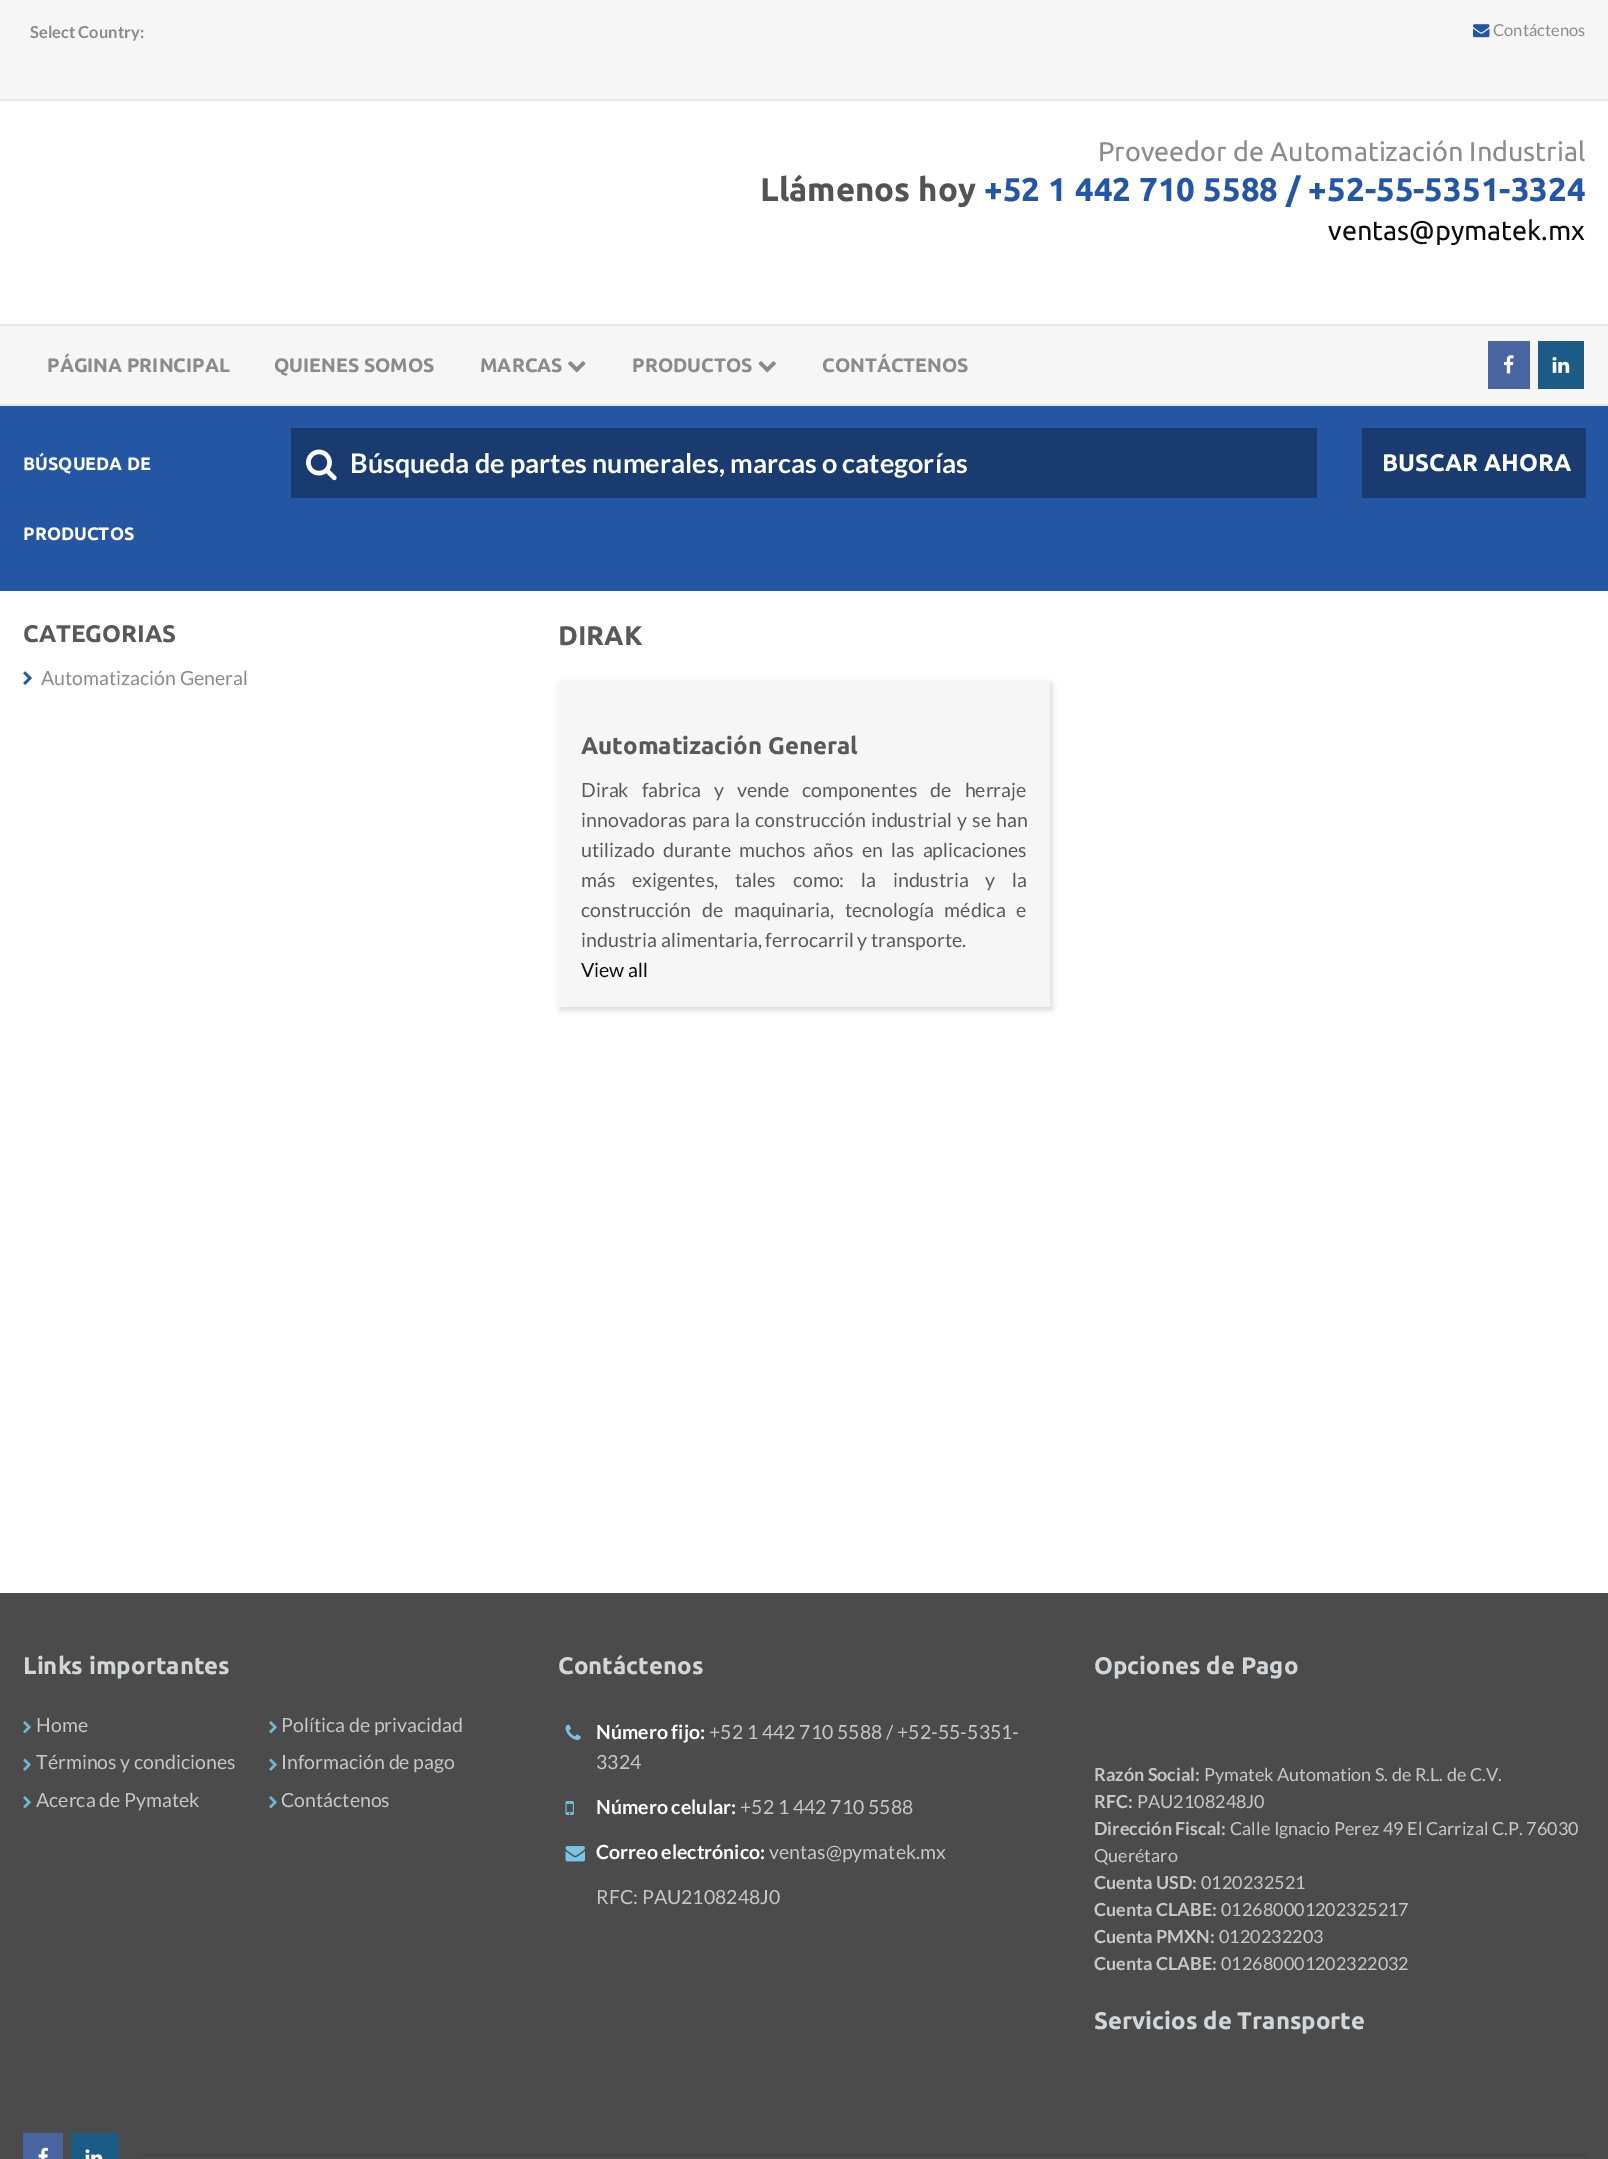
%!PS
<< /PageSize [1608 2159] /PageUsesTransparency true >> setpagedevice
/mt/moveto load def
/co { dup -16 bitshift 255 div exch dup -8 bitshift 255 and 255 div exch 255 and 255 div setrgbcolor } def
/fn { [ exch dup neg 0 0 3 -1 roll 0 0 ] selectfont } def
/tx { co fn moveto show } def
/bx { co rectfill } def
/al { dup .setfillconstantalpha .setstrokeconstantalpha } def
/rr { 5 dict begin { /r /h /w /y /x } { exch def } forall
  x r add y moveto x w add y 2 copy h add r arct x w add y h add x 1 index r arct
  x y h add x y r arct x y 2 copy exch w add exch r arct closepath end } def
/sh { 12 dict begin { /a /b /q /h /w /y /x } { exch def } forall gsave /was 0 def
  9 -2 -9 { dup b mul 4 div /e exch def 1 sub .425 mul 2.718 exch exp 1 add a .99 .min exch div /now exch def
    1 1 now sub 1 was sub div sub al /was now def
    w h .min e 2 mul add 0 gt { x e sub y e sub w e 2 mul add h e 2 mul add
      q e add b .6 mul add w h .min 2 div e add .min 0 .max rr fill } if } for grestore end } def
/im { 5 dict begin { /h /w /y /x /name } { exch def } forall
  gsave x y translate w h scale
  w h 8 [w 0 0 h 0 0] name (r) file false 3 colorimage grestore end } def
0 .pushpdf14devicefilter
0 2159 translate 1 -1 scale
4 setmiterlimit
0 0 1608 2159 16#FFFFFF bx
0 0 1608 99 16#F6F6F6 bx
0 99 1608 2 16#E6E6E6 bx
(media/1.raw) 1473 24 17 14 im
0 326 1608 78 16#F6F6F6 bx
0 324 1608 2 16#E6E6E6 bx
0 404 1608 2 16#E6E6E6 bx
(media/2.raw) 568 361 18 12 im
(media/3.raw) 758 361 18 12 im
1488 341 42 48 16#49659F bx
(media/4.raw) 1504 355 10 19 im
1538 341 46 48 16#1C5B86 bx
(media/5.raw) 1552 356 18 17 im
0 406 1608 185 16#2456A3 bx
291 428 1026 70 16#193B70 bx
(media/6.raw) 306 449 31 32 im
1362 428 224 70 16#193B70 bx
(media/7.raw) 23 671 9 14 im
16#000000 co
560 684 492 326 0 3 .15 sh
558 681 492 326 16#F6F6F6 bx
0 1593 1608 566 16#4B4B4B bx
(media/8.raw) 23 1721 8 13 im
(media/8.raw) 269 1721 8 13 im
(media/9.raw) 23 1758 8 13 im
(media/9.raw) 269 1758 8 13 im
(media/8.raw) 23 1796 8 13 im
(media/8.raw) 269 1796 8 13 im
(media/10.raw) 565 1724 16 16 im
(media/11.raw) 565 1801 9 14 im
(media/12.raw) 565 1846 20 16 im
141 2154 1445 2 16#444444 bx
23 2133 40 26 16#49659F bx
(media/13.raw) 38 2147 10 12 im
71 2133 48 26 16#1C5B86 bx
(media/14.raw) 85 2149 18 10 im
(Select Country:) 30 38 /Lato-Bold 16.5 16#8B8B8B tx
(Contáctenos) 1493 36 /Lato-Regular 16.5 16#8B8B8B tx
(Proveedor de Automatización Industrial) 1098 161 /Ubuntu-Regular 27 16#8B8B8B tx
(Llámenos hoy) 760 201 /Ubuntu-Bold 33 16#535353 tx
(+52 1 442 710 5588 / +52-55-5351-3324) 984 201 /Ubuntu-Bold 33 16#2456A3 tx
(ventas@pymatek.mx) 1328 240 /Ubuntu-Regular 27 16#0D0D0D tx
(PÁGINA PRINCIPAL) 47 372 /Ubuntu-Bold 19.5 16#8B8B8B tx
(QUIENES SOMOS) 274 372 /Ubuntu-Bold 19.5 16#8B8B8B tx
(MARCAS) 480 372 /Ubuntu-Bold 19.5 16#8B8B8B tx
(PRODUCTOS) 632 372 /Ubuntu-Bold 19.5 16#8B8B8B tx
(CONTÁCTENOS) 822 372 /Ubuntu-Bold 19.5 16#8B8B8B tx
(BÚSQUEDA DE) 23 470 /Ubuntu-Bold 18 16#FFFFFF tx
(PRODUCTOS) 23 540 /Ubuntu-Bold 18 16#FFFFFF tx
(Búsqueda de partes numerales, marcas o categorías) 350 473 /Lato-Bold 27 16#FFFFFF tx
(BUSCAR AHORA) 1382 471 /Ubuntu-Bold 24 16#FFFFFF tx
(CATEGORIAS) 23 642 /Ubuntu-Bold 24 16#595959 tx
(Automatización General) 41 685 /Lato-Regular 19.5 16#8B8B8B tx
(DIRAK) 558 645 /Ubuntu-Bold 27 16#595959 tx
(Automatización General) 581 754 /Ubuntu-Bold 24 16#595959 tx
/Lato-Regular 19.5 fn
581 797 mt 9.25 0 32 (Dirak fabrica y vende componentes de herraje) widthshow
581 827 mt 1.5 0 32 (innovadoras para la construcción industrial y se han) widthshow
581 857 mt 4.5 0 32 (utilizado durante muchos años en las aplicaciones) widthshow
581 887 mt 13 0 32 (más exigentes, tales como: la industria y la) widthshow
581 917 mt 7 0 32 (construcción de maquinaria, tecnología médica e) widthshow
(industria alimentaria, ferrocarril y transporte.) 581 947 /Lato-Regular 19.5 16#595959 tx
(View all) 581 977 /Lato-Regular 19.5 16#0D0D0D tx
(Links importantes) 23 1674 /Ubuntu-Bold 24 16#D3D5D7 tx
(Home) 36 1732 /Lato-Regular 19.5 16#C7C7C7 tx
(Política de privacidad) 281 1732 /Lato-Regular 19.5 16#C7C7C7 tx
(Términos y condiciones) 36 1769 /Lato-Regular 19.5 16#C7C7C7 tx
(Información de pago) 281 1769 /Lato-Regular 19.5 16#C7C7C7 tx
(Acerca de Pymatek) 36 1807 /Lato-Regular 19.5 16#C7C7C7 tx
(Contáctenos) 281 1807 /Lato-Regular 19.5 16#C7C7C7 tx
(Contáctenos) 558 1674 /Ubuntu-Bold 24 16#D3D5D7 tx
(Número fijo:) 596 1739 /Lato-Bold 19.5 16#FFFFFF tx
(+52 1 442 710 5588 / +52-55-5351-) 709 1739 /Lato-Regular 19.5 16#C7C7C7 tx
(3324) 596 1769 /Lato-Regular 19.5 16#C7C7C7 tx
(Número celular:) 596 1814 /Lato-Bold 19.5 16#FFFFFF tx
(+52 1 442 710 5588) 740 1814 /Lato-Regular 19.5 16#C7C7C7 tx
(Correo electrónico:) 596 1859 /Lato-Bold 19.5 16#FFFFFF tx
(ventas@pymatek.mx) 769 1859 /Lato-Regular 19.5 16#C7C7C7 tx
(RFC: PAU2108248J0) 596 1904 /Lato-Regular 19.5 16#C7C7C7 tx
(Opciones de Pago) 1094 1674 /Ubuntu-Bold 24 16#D3D5D7 tx
(Razón Social:) 1094 1781 /Lato-Bold 18 16#C7C7C7 tx
(Pymatek Automation S. de R.L. de C.V.) 1204 1781 /Lato-Regular 18 16#C7C7C7 tx
(RFC:) 1094 1808 /Lato-Bold 18 16#C7C7C7 tx
(PAU2108248J0) 1137 1808 /Lato-Regular 18 16#C7C7C7 tx
(Dirección Fiscal:) 1094 1835 /Lato-Bold 18 16#C7C7C7 tx
(Calle Ignacio Perez 49 El Carrizal C.P. 76030) 1230 1835 /Lato-Regular 18 16#C7C7C7 tx
(Querétaro) 1094 1862 /Lato-Regular 18 16#C7C7C7 tx
(Cuenta USD:) 1094 1889 /Lato-Bold 18 16#C7C7C7 tx
(0120232521) 1201 1889 /Lato-Regular 18 16#C7C7C7 tx
(Cuenta CLABE:) 1094 1916 /Lato-Bold 18 16#C7C7C7 tx
(012680001202325217) 1221 1916 /Lato-Regular 18 16#C7C7C7 tx
(Cuenta PMXN:) 1094 1943 /Lato-Bold 18 16#C7C7C7 tx
(0120232203) 1219 1943 /Lato-Regular 18 16#C7C7C7 tx
(Cuenta CLABE:) 1094 1970 /Lato-Bold 18 16#C7C7C7 tx
(012680001202322032) 1221 1970 /Lato-Regular 18 16#C7C7C7 tx
(Servicios de Transporte) 1094 2029 /Ubuntu-Bold 24 16#D3D5D7 tx
.poppdf14devicefilter showpage
